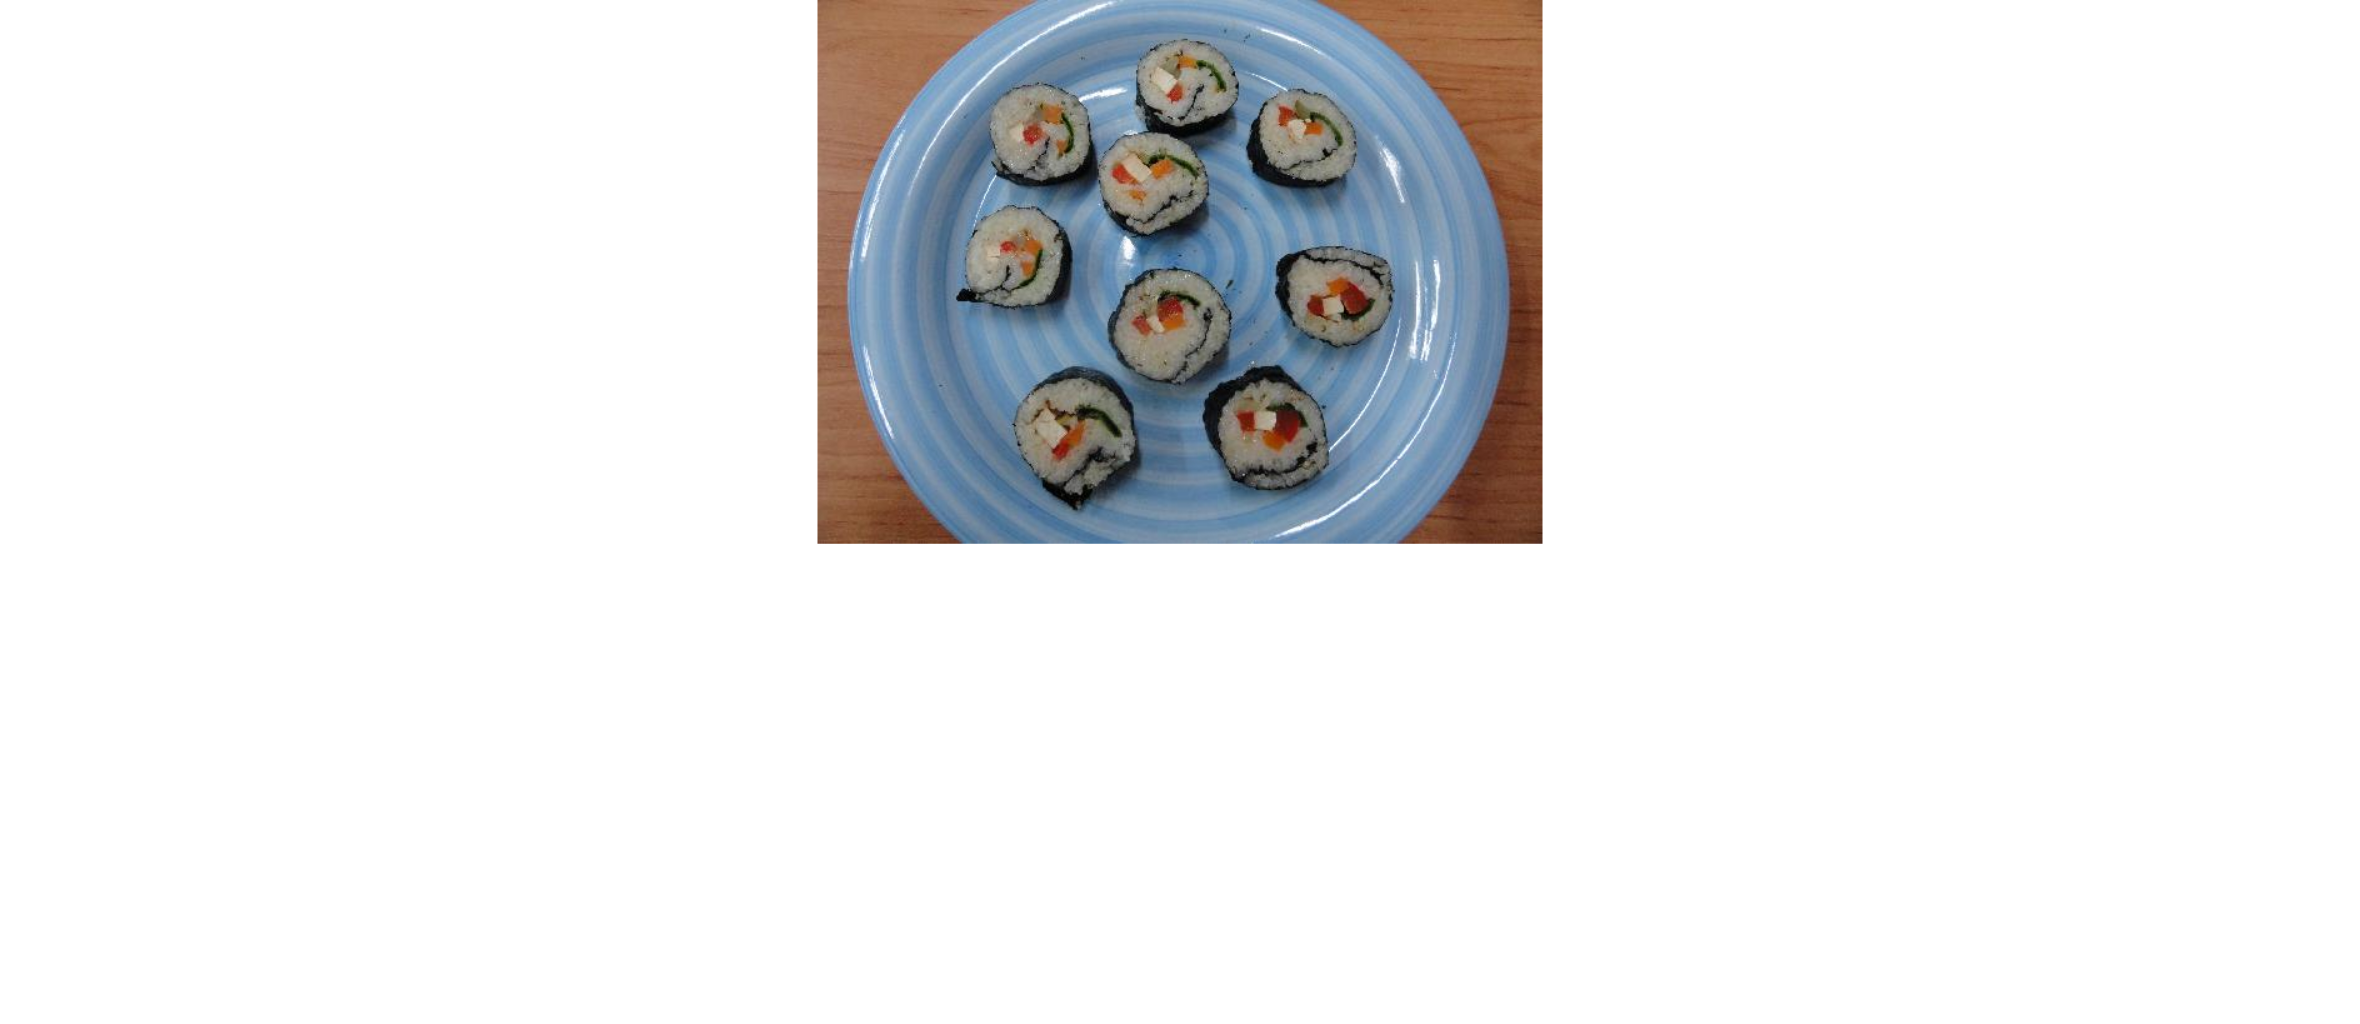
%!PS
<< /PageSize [2360 1024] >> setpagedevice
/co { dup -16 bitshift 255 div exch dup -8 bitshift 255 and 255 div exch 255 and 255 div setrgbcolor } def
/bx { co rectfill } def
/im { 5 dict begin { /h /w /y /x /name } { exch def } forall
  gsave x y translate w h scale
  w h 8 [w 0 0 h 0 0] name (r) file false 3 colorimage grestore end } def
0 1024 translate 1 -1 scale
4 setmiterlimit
0 0 2360 1024 16#FFFFFF bx
(media/1.raw) 817 0 726 544 im
showpage
